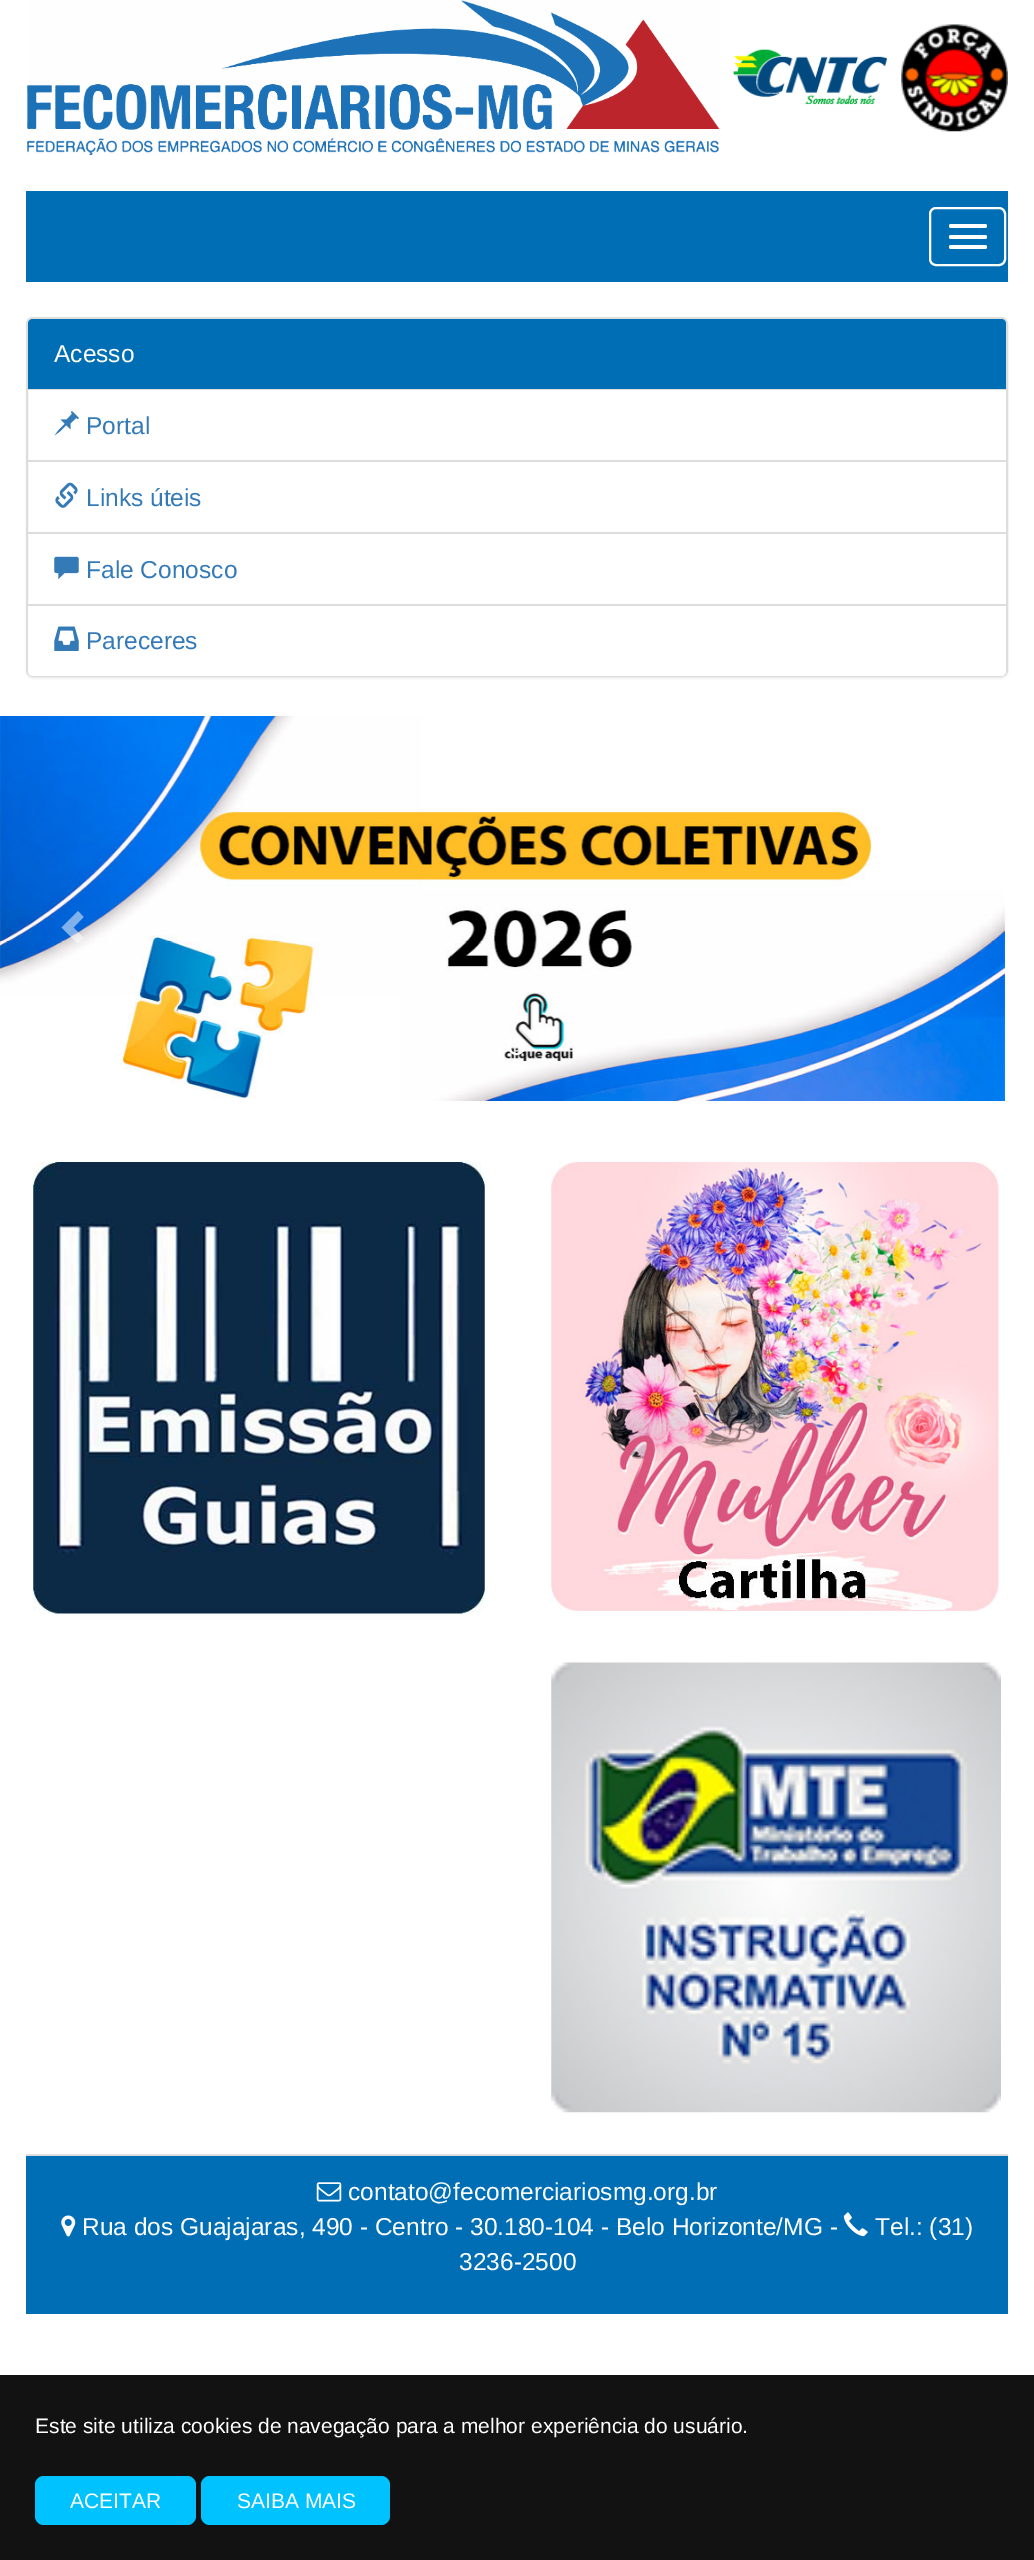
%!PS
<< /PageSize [1034 2560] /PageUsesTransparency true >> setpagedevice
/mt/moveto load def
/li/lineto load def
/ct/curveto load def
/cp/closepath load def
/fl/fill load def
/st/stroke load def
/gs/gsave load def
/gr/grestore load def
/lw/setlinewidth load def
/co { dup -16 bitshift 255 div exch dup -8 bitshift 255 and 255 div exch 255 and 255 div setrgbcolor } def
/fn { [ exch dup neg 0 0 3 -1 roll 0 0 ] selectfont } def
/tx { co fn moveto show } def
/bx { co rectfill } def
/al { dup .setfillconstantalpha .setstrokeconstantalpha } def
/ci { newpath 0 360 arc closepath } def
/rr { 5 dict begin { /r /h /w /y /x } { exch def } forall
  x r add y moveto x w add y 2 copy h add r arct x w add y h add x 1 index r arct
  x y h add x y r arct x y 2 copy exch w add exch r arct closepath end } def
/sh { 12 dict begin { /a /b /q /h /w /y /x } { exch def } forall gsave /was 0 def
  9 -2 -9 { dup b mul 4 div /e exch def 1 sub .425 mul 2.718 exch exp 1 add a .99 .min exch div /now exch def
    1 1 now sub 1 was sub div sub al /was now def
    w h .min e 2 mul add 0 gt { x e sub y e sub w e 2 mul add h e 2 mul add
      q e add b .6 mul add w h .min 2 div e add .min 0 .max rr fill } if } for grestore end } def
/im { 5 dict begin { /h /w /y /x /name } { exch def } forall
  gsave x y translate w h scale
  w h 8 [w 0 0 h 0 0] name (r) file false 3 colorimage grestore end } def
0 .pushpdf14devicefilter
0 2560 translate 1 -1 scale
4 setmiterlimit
0 0 1034 2560 16#FFFFFF bx
(media/1.raw) 27 0 693 156 im
(media/2.raw) 733 49 154 56 im
(media/3.raw) 901 24 107 108 im
26 191 982 91 16#006EB4 bx
16#FFFFFF co
2 lw
930 208 75 57 6 rr st
949 224 38 4 2 rr fl
949 235 38 4 2 rr fl
949 245 38 4 2 rr fl
16#000000 co
26 319 982 360 7 1 .05 sh
16#FFFFFF co
27 318 980 358 6 rr gs fl gr
16#DDDDDD co
st
16#006EB4 co
33 319 mt 1001 319 li 1004 319 1006 321 1006 324 ct 1006 390 li 28 390 li 28 324 li 28 321 30 319 33 319 ct cp fl
28 389 978 1 16#DDDDDD bx
28 460 978 2 16#DDDDDD bx
(media/4.raw) 54 411 25 25 im
28 532 978 2 16#DDDDDD bx
(media/5.raw) 55 482 23 26 im
(media/6.raw) 54 556 25 24 im
16#FFFFFF co
28 604 mt 1006 604 li 1006 671 li 1006 674 1004 676 1001 676 ct 33 676 li 30 676 28 674 28 671 ct cp fl
28 604 978 2 16#DDDDDD bx
(media/7.raw) 54 626 25 25 im
(media/8.raw) 0 716 1005 385 im
0.5 al
16#FFFFFF co
83.5 917 mt 73.5 927.5 li 83.5 937.5 li 78 943.5 li 61.5 927.5 li 78 911 li cp fl
1 al
516.5 1046.5 7.5 ci st
(media/9.raw) 33 1162 452 452 im
(media/10.raw) 551 1162 450 451 im
(media/11.raw) 551 1662 450 451 im
26 2156 982 158 16#006EB4 bx
26 2154 982 2 16#DDDDDD bx
(media/12.raw) 316 2182 26 20 im
(media/13.raw) 61 2215 15 22 im
(media/14.raw) 843 2212 25 25 im
0 2375 1034 185 16#121212 bx
16#00C2FF co
35 2476 161 49 9 rr fl
201 2476 189 49 9 rr fl
(Acesso) 54 362 /LiberationSans-Regular 24.5 16#FFFFFF tx
(Portal) 86 434 /LiberationSans-Regular 24.5 16#337AB7 tx
(Links úteis) 86 506 /LiberationSans-Regular 24.5 16#337AB7 tx
(Fale Conosco) 86 578 /LiberationSans-Regular 24.5 16#337AB7 tx
(Pareceres) 86 649 /LiberationSans-Regular 24.5 16#337AB7 tx
(contato@fecomerciariosmg.org.br) 348 2200 /LiberationSans-Regular 24.5 16#FFFFFF tx
(Rua dos Guajajaras, 490 - Centro - 30.180-104 - Belo Horizonte/MG -) 82 2235 /LiberationSans-Regular 24.5 16#FFFFFF tx
(Tel.: \(31\)) 875 2235 /LiberationSans-Regular 24.5 16#FFFFFF tx
(3236-2500) 459 2270 /LiberationSans-Regular 24.5 16#FFFFFF tx
(Este site utiliza cookies de navegação para a melhor experiência do usuário.) 35 2433 /LiberationSans-Regular 21 16#FFFFFF tx
(ACEITAR) 70 2508 /LiberationSans-Regular 21 16#FFFFFF tx
(SAIBA MAIS) 237 2508 /LiberationSans-Regular 21 16#FFFFFF tx
.poppdf14devicefilter showpage
